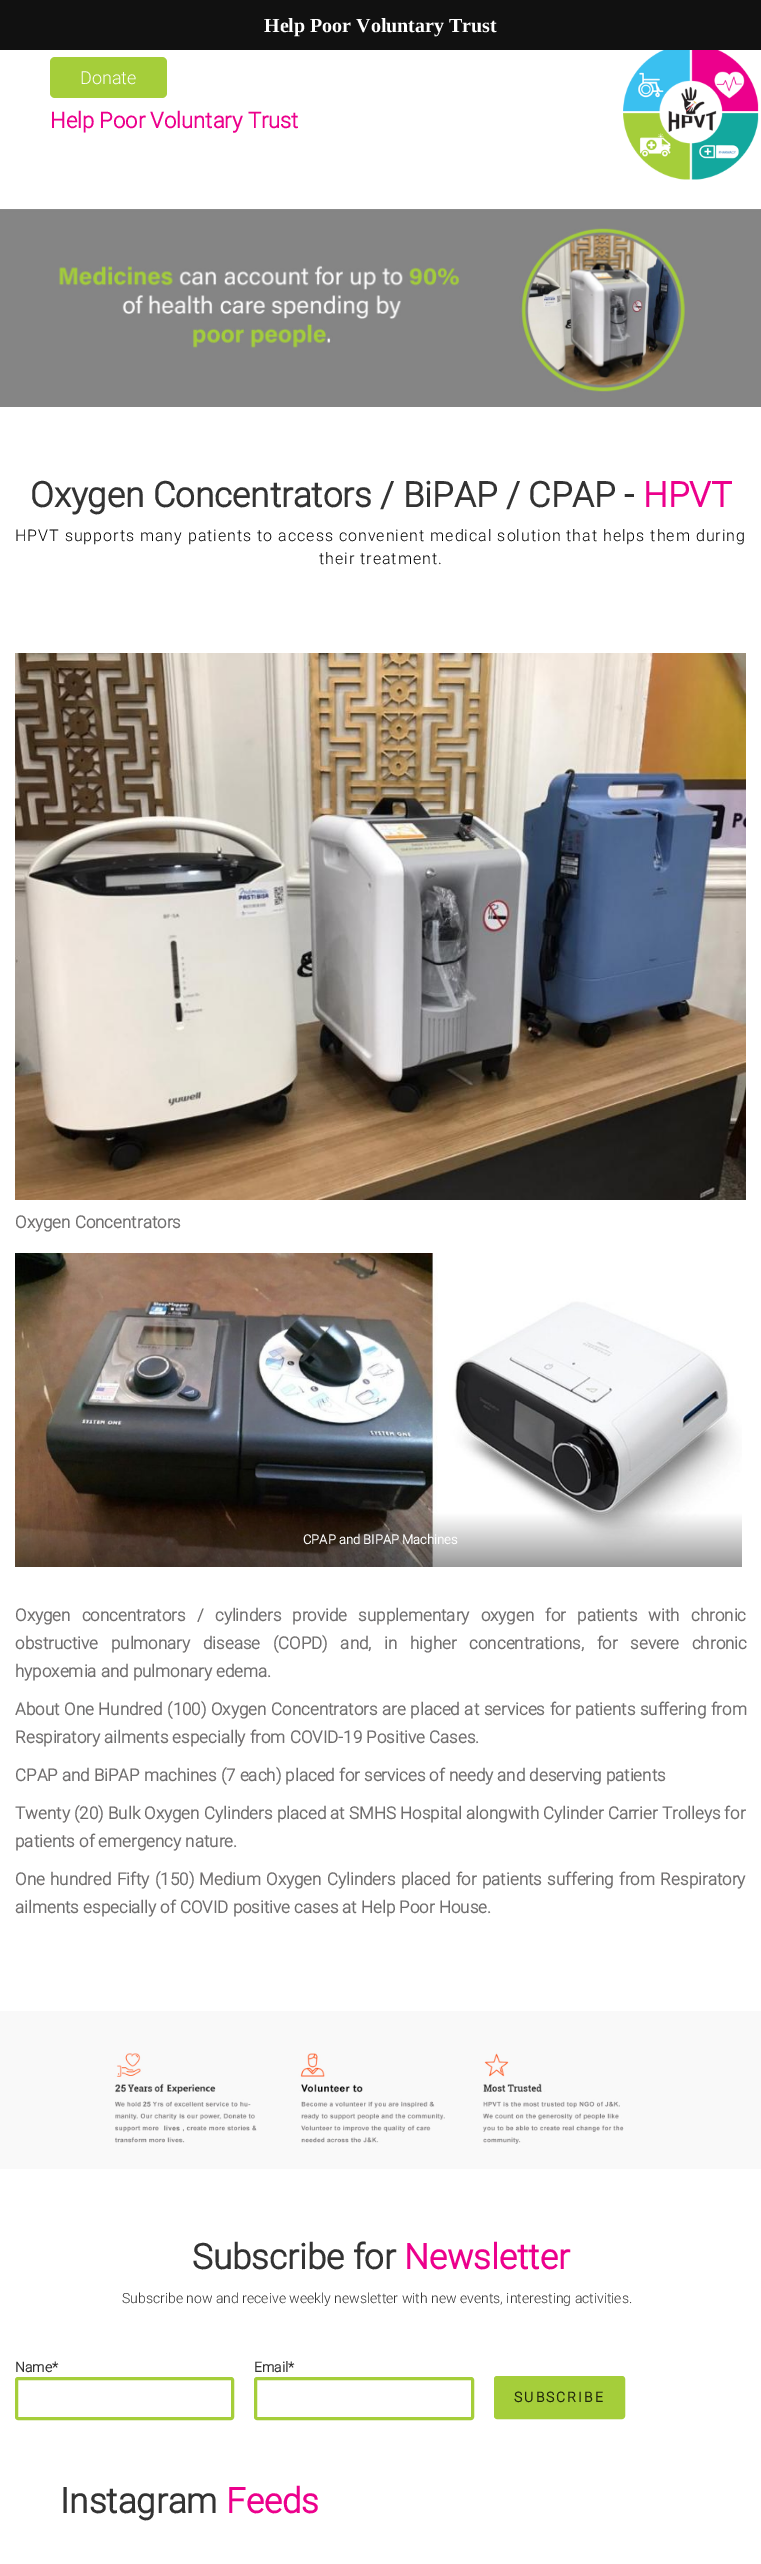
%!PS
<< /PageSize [761 2564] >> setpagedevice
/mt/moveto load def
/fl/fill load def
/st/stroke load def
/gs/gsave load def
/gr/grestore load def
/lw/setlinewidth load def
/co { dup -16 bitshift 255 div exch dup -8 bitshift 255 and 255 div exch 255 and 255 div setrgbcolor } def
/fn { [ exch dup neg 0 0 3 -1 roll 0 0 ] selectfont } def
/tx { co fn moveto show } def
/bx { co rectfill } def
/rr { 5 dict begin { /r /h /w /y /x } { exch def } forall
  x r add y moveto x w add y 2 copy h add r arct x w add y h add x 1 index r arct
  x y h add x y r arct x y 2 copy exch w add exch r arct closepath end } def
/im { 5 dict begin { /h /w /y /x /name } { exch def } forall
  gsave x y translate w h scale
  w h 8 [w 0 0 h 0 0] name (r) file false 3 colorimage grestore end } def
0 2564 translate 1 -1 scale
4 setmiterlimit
0 0 761 2564 16#FFFFFF bx
0 0 761 50 16#111111 bx
16#A5CE3A co
50 57 117 41 5 rr fl
(media/1.raw) 623 50 136 130 im
(media/2.raw) 0 209 761 198 im
(media/3.raw) 15 653 731 547 im
(media/4.raw) 15 1253 727 314 im
(media/5.raw) 0 2011 761 158 im
3 lw
16.5 2378.5 216 40 1.5 rr st
255.5 2378.5 217 40 1.5 rr st
495.5 2377.5 128 40 1.5 rr gs fl gr
st
(Help Poor Voluntary Trust) 264 32 /LiberationSerif-Bold 20 16#FFFFFF tx
(Donate) 80 84 /Roboto-Light 18 16#FFFFFF tx
(Help Poor Voluntary Trust) 50 128 /Roboto-Bold 22 16#EC008C tx
(Oxygen Concentrators / BiPAP / CPAP -) 30 507 /Roboto-Bold 35 16#333333 tx
(HPVT) 643 507 /Roboto-Bold 35 16#EC008C tx
/Roboto-Light 16 fn
16#000000 co
15 541 mt 1 0 (HPVT supports many patients to access convenient medical solution that helps them during) ashow
319 564 mt 1 0 (their treatment.) ashow
(Oxygen Concentrators) 15 1228 /Roboto-Bold 17 16#706E6E tx
(CPAP and BIPAP Machines) 303 1544 /Roboto-Bold 13 16#FFFFFF tx
/Roboto-Bold 17 fn
16#706E6E co
15 1621 mt 7 0 32 (Oxygen concentrators / cylinders provide supplementary oxygen for patients with chronic) widthshow
15 1649 mt 8.5 0 32 (obstructive pulmonary disease \(COPD\) and, in higher concentrations, for severe chronic) widthshow
(hypoxemia and pulmonary edema.) 15 1677 /Roboto-Bold 17 16#706E6E tx
15 1715 mt .5 0 32 (About One Hundred \(100\) Oxygen Concentrators are placed at services for patients suffering from) widthshow
(Respiratory ailments especially from COVID-19 Positive Cases.) 15 1743 /Roboto-Bold 17 16#706E6E tx
(CPAP and BiPAP machines \(7 each\) placed for services of needy and deserving patients) 15 1781 /Roboto-Bold 17 16#706E6E tx
15 1819 mt .1 0 32 (Twenty \(20\) Bulk Oxygen Cylinders placed at SMHS Hospital alongwith Cylinder Carrier Trolleys for) widthshow
(patients of emergency nature.) 15 1847 /Roboto-Bold 17 16#706E6E tx
15 1885 mt 1.25 0 32 (One hundred Fifty \(150\) Medium Oxygen Cylinders placed for patients suffering from Respiratory) widthshow
(ailments especially of COVID positive cases at Help Poor House.) 15 1913 /Roboto-Bold 17 16#706E6E tx
(Subscribe for) 192 2269 /Roboto-Bold 35 16#333333 tx
(Newsletter) 404 2269 /Roboto-Bold 35 16#EC008C tx
(Subscribe now and receive weekly newsletter with new events, interesting activities.) 122 2303 /Roboto-Light 14 16#333333 tx
(Name*) 15 2372 /Roboto-Bold 14 16#333333 tx
(Email*) 254 2372 /Roboto-Bold 14 16#333333 tx
16#21290C co
514 2402 mt 2 0 (SUBSCRIBE) ashow
(Instagram) 60 2513 /Roboto-Bold 35 16#333333 tx
(Feeds) 226 2513 /Roboto-Bold 35 16#EC008C tx
showpage
